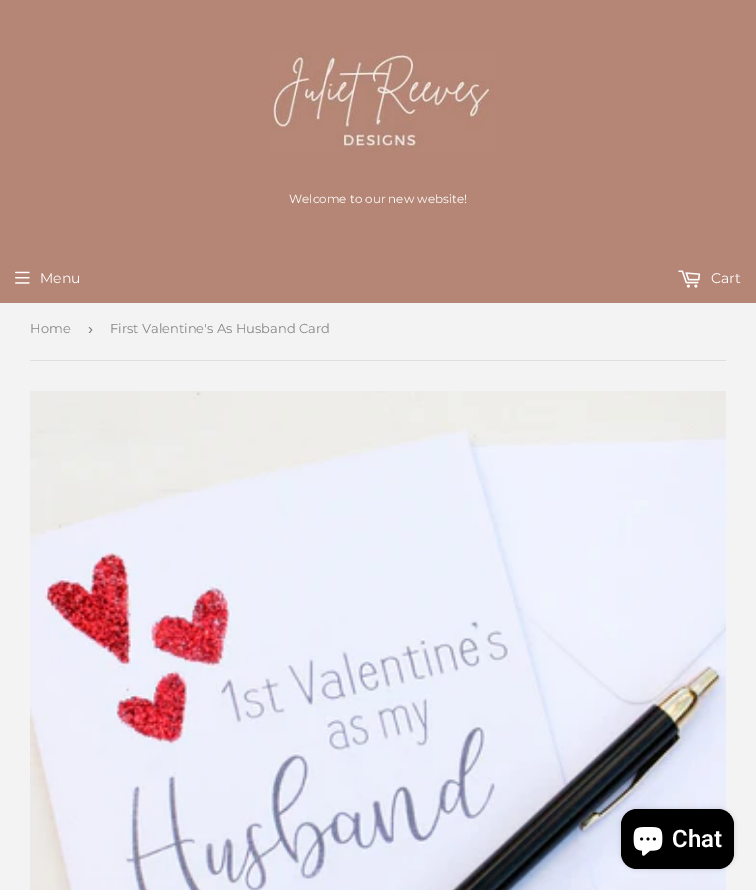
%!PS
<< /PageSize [756 890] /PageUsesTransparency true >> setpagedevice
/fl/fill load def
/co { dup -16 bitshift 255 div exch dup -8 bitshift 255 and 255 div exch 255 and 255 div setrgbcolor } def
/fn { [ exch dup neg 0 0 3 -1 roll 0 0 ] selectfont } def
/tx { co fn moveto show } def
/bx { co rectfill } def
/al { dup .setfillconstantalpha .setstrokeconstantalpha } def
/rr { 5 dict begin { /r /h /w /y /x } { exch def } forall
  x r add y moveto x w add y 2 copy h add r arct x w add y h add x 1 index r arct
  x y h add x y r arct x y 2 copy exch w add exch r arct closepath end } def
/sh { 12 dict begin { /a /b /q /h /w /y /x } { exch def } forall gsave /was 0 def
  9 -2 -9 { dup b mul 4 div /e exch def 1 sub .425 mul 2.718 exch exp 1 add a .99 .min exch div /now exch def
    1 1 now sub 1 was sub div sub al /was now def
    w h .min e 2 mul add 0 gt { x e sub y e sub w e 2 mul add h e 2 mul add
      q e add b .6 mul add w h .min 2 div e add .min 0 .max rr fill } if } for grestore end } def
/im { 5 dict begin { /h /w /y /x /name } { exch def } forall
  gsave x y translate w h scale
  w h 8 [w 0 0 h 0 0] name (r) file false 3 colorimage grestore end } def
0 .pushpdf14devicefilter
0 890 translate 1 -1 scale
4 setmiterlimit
0 0 756 890 16#F3F3F3 bx
0 0 756 303 16#B58676 bx
(media/1.raw) 270 52 226 101 im
(media/2.raw) 15 271 15 13 im
(media/3.raw) 678 270 23 18 im
30 360 696 1 16#DEDEDE bx
(media/4.raw) 30 391 696 499 im
16#000000 co
621 809 113 60 16 2.5 .15 sh
621 809 113 60 16 rr fl
(media/5.raw) 633 827 30 29 im
(Welcome to our new website!) 289 203 /Montserrat-Regular 11.9 16#FFFFFF tx
(Menu) 40 283 /Montserrat-Regular 14 16#FFFFFF tx
(Cart) 711 283 /Montserrat-Regular 14 16#FFFFFF tx
(Home) 30 333 /Montserrat-Regular 13 16#858585 tx
(›) 88 334 /LiberationSans-Regular 15 16#767676 tx
(First Valentine's As Husband Card) 110 333 /Montserrat-Regular 13 16#858585 tx
(Chat) 672 847 /Roboto-SemiBold 24 16#FFFFFF tx
.poppdf14devicefilter showpage
